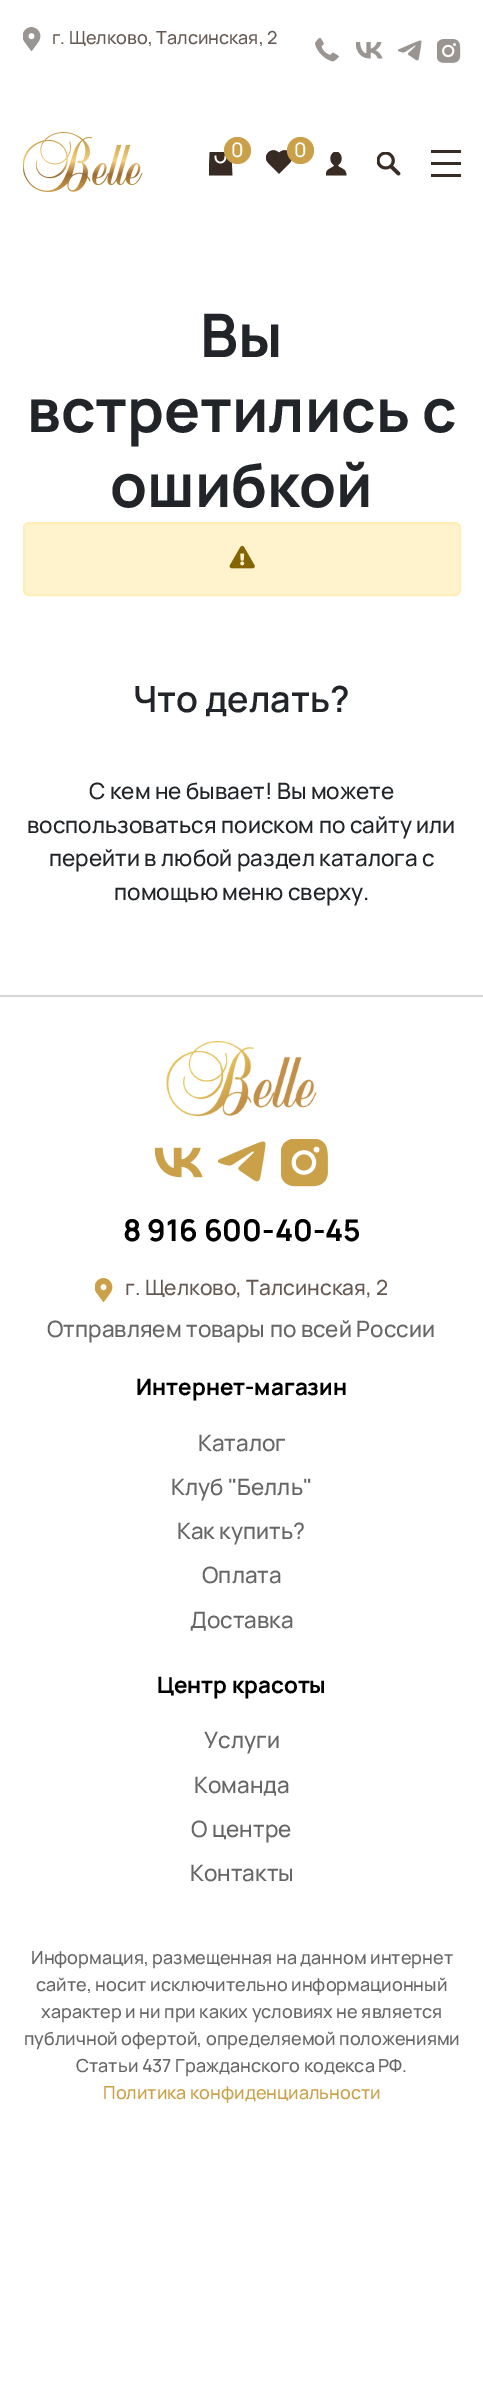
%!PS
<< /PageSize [483 2393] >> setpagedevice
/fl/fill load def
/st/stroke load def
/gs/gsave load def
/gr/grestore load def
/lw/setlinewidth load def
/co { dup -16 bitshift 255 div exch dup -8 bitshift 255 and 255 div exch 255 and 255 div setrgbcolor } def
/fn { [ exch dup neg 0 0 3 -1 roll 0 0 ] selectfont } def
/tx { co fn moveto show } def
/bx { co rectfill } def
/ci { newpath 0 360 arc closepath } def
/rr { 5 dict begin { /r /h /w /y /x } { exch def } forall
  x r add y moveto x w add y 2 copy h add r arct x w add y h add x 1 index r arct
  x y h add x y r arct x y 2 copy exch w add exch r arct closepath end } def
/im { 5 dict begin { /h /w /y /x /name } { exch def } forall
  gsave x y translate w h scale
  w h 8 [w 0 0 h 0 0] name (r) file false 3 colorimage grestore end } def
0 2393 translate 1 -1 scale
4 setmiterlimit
0 0 483 2393 16#FFFFFF bx
(media/1.raw) 23 27 18 24 im
(media/2.raw) 315 38 24 24 im
(media/3.raw) 356 42 27 17 im
(media/4.raw) 398 40 24 21 im
(media/5.raw) 437 39 24 24 im
(media/6.raw) 23 132 120 60 im
(media/7.raw) 209 152 24 24 im
16#CAA048 co
237.5 150.5 13.5 ci fl
(media/8.raw) 266 150 26 24 im
300.5 150.5 13.5 ci fl
(media/9.raw) 326 152 21 24 im
(media/10.raw) 377 152 24 24 im
431 150 30 3 16#372B24 bx
431 162 30 3 16#372B24 bx
431 174 30 3 16#372B24 bx
16#FFF3CD co
24 523 436 72 5 rr gs fl gr
16#FFEEBA co
2 lw
st
(media/11.raw) 229 545 26 24 im
0 995 483 2 16#D6D6D6 bx
(media/12.raw) 166 1041 151 75 im
(media/13.raw) 155 1147 48 31 im
(media/14.raw) 218 1141 48 41 im
(media/15.raw) 281 1139 47 48 im
(media/16.raw) 95 1278 18 24 im
(г. Щелково, Талсинская, 2) 52 44 /Manrope-Medium 18 16#665952 tx
(0) 231 157 /Manrope-Medium 20 16#FFFFFF tx
(0) 294 157 /Manrope-Medium 20 16#FFFFFF tx
(Вы) 200 357 /Manrope-Bold 60 16#212529 tx
(встретились с) 27 432 /Manrope-Bold 60 16#212529 tx
(ошибкой) 110 507 /Manrope-Bold 60 16#212529 tx
(Что делать?) 133 712 /Manrope-SemiBold 36 16#212529 tx
(С кем не бывает! Вы можете) 89 799 /Manrope-Medium 22.5 16#212529 tx
(воспользоваться поиском по сайту или) 27 833 /Manrope-Medium 22.5 16#212529 tx
(перейти в любой раздел каталога с) 49 866 /Manrope-Medium 22.5 16#212529 tx
(помощью меню сверху.) 114 900 /Manrope-Medium 22.5 16#212529 tx
(8 916 600-40-45) 123 1241 /Manrope-Bold 30 16#000000 tx
(г. Щелково, Талсинская, 2) 125 1295 /Manrope-Medium 21 16#665952 tx
(Отправляем товары по всей России) 47 1337 /Manrope-Medium 22.5 16#666666 tx
(Интернет-магазин) 136 1395 /Manrope-Bold 22.5 16#000000 tx
(Каталог) 198 1451 /Manrope-Medium 22.5 16#666666 tx
(Клуб "Белль") 171 1495 /Manrope-Medium 22.5 16#666666 tx
(Как купить?) 177 1539 /Manrope-Medium 22.5 16#666666 tx
(Оплата) 202 1583 /Manrope-Medium 22.5 16#666666 tx
(Доставка) 190 1628 /Manrope-Medium 22.5 16#666666 tx
(Центр красоты) 157 1693 /Manrope-Bold 22.5 16#000000 tx
(Услуги) 204 1748 /Manrope-Medium 22.5 16#666666 tx
(Команда) 194 1793 /Manrope-Medium 22.5 16#666666 tx
(О центре) 191 1837 /Manrope-Medium 22.5 16#666666 tx
(Контакты) 190 1881 /Manrope-Medium 22.5 16#666666 tx
(Информация, размещенная на данном интернет) 31 1964 /Manrope-Medium 18 16#666666 tx
(сайте, носит исключительно информационный) 36 1991 /Manrope-Medium 18 16#666666 tx
(характер и ни при каких условиях не является) 41 2018 /Manrope-Medium 18 16#666666 tx
(публичной офертой, определяемой положениями) 24 2045 /Manrope-Medium 18 16#666666 tx
(Статьи 437 Гражданского кодекса РФ.) 76 2072 /Manrope-Medium 18 16#666666 tx
(Политика конфиденциальности) 103 2099 /Manrope-Medium 18 16#CAA048 tx
showpage
